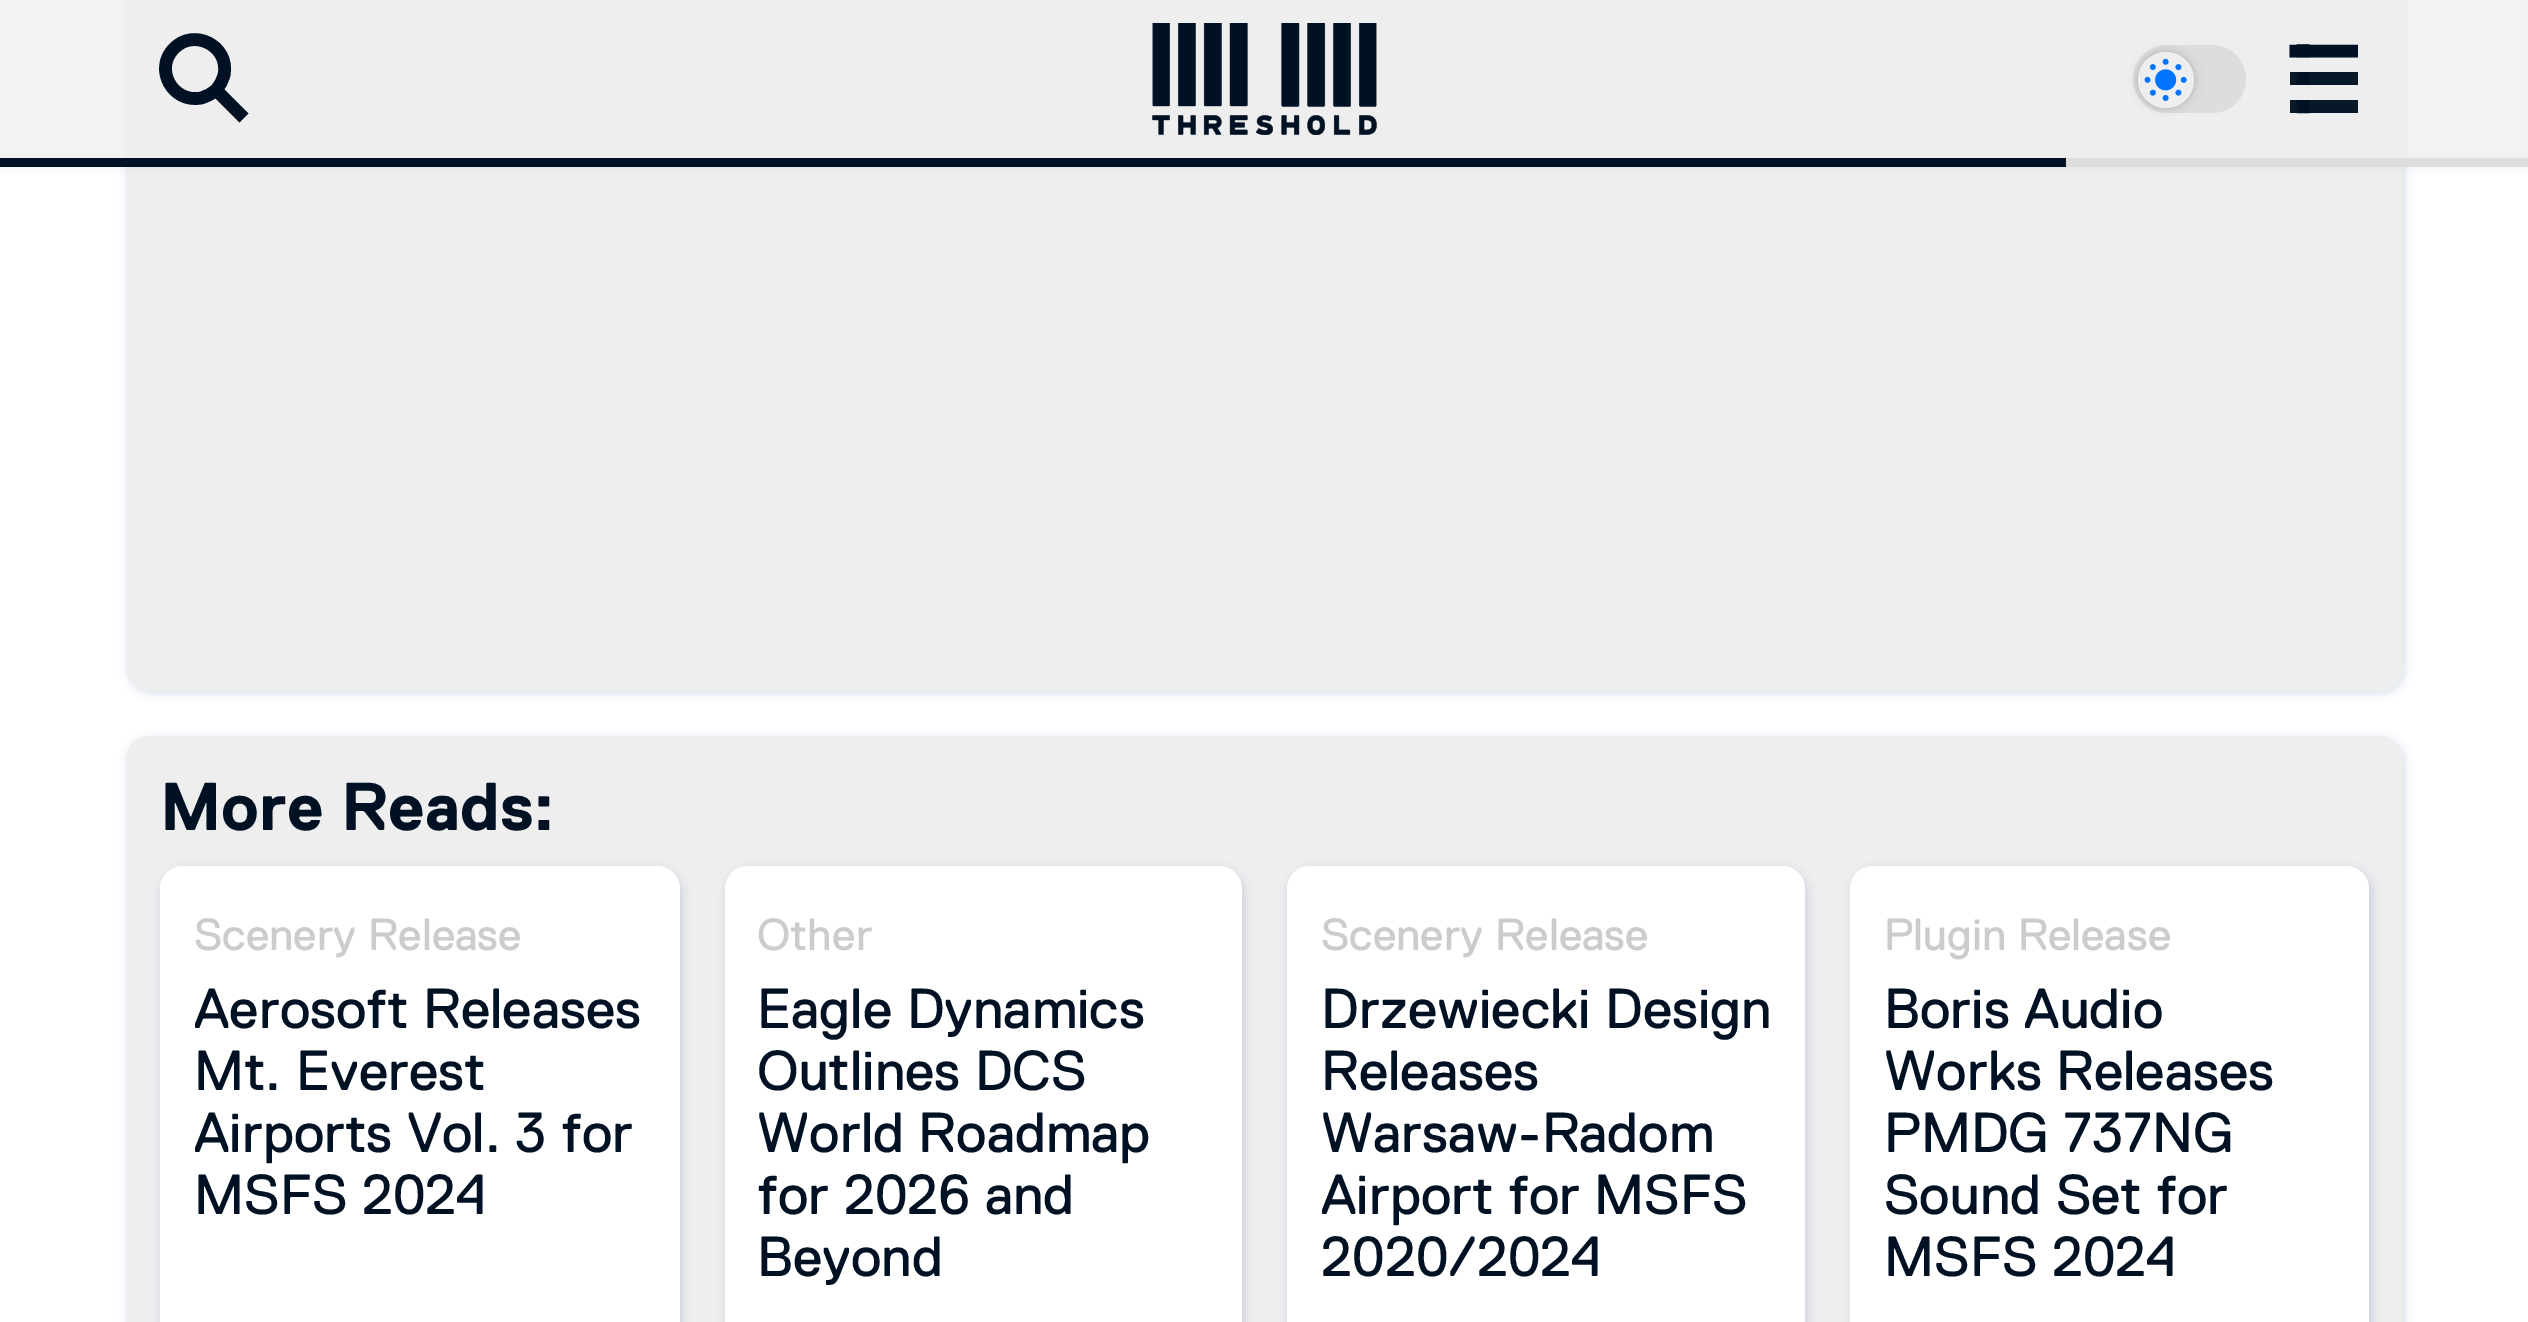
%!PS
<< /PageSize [2528 1322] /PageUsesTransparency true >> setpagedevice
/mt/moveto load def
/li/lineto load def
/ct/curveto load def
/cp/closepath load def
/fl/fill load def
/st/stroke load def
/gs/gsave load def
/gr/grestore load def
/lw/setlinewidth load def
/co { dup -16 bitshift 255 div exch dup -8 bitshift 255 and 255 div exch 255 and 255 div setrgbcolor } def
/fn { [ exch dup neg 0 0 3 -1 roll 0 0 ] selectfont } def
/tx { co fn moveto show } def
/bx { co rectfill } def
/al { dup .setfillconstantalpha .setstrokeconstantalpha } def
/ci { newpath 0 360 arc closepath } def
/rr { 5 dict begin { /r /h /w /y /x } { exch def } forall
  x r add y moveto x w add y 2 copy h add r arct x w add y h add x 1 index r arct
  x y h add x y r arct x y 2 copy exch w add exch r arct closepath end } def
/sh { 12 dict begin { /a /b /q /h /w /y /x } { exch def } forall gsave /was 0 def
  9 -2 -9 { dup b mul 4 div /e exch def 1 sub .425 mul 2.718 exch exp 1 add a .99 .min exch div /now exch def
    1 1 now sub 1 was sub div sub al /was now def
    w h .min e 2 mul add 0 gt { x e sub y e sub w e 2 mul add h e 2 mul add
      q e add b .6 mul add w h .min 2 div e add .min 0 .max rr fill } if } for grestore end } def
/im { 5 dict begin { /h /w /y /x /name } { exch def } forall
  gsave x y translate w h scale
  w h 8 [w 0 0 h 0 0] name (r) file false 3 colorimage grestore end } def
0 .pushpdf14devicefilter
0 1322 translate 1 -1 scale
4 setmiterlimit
0 0 2528 1322 16#FFFFFF bx
16#002987 co
128 -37 2277 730 23 4.5 .15 sh
16#EEEEEE co
126 -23 2277 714 23 rr fl
gs
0 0 mt 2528 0 li 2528 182 li 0 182 li cp 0 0 mt 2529 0 li 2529 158 li 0 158 li cp eoclip newpath
16#002987 co
2 2 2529 158 0 7 .2 sh
gr
0.75 al
0 0 2528 158 16#EEEEEE bx
1 al
16#001123 co
12.6 lw
1 setlinejoin
173.5 49 mt 193 27.5 230 45.5 224 75 ct 222.5 80.5 220 85.5 216 90 ct 211.5 94 206.5 96.5 201 98 ct 172.5 103.5 154 69 173.5 49 ct st
2 setlinecap
216 90 mt 239.5 113.5 li st
(media/1.raw) 1152 23 225 112 im
16#DDDDDD co
2133 45 113 68 34 rr fl
16#000000 co
2138 52 56 56 28 4.5 .2 sh
16#EEEEEE co
2166 80 28 ci fl
(media/2.raw) 2144 58 43 43 im
16#001123 co
6.3 lw
0 setlinejoin
2306.5 54 mt 2300 54 li 2300 47.5 li 2306.5 47.5 li cp st
12.6 lw
2296 51 mt 2351.5 51 li st
6.3 lw
2306.5 81.5 mt 2300 81.5 li 2300 75.5 li 2306.5 75.5 li cp st
0.97 al
2290 72 68 13 16#001123 bx
1 al
2306.5 110 mt 2300 110 li 2300 103.5 li 2306.5 103.5 li cp st
0.97 al
2290 100 68 13 16#001123 bx
1 al
2066 158 462 9 16#DDDDDD bx
0 158 2066 9 16#001123 bx
16#002987 co
128 738 2277 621 23 4.5 .15 sh
16#EEEEEE co
126 736 2277 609 23 rr fl
16#002987 co
162 869 520 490 23 4.5 .15 sh
16#FFFFFF co
160 866 520 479 23 rr fl
16#002987 co
727 869 517 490 23 4.5 .15 sh
16#FFFFFF co
725 866 517 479 23 rr fl
16#002987 co
1289 869 518 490 23 4.5 .15 sh
16#FFFFFF co
1287 866 518 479 23 rr fl
16#002987 co
1852 869 520 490 23 4.5 .15 sh
16#FFFFFF co
1850 866 519 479 23 rr fl
(More Reads:) 160 830 /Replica-Bold 67.5 16#001123 tx
(Scenery Release) 194 950 /Replica-Regular 45 16#CCCCCC tx
(Aerosoft Releases) 194 1028 /Replica-Regular 56.25 16#001123 tx
(Mt. Everest) 194 1090 /Replica-Regular 56.25 16#001123 tx
(Airports Vol. 3 for) 194 1152 /Replica-Regular 56.25 16#001123 tx
(MSFS 2024) 194 1214 /Replica-Regular 56.25 16#001123 tx
(Other) 757 950 /Replica-Regular 45 16#CCCCCC tx
(Eagle Dynamics) 757 1028 /Replica-Regular 56.25 16#001123 tx
(Outlines DCS) 757 1090 /Replica-Regular 56.25 16#001123 tx
(World Roadmap) 757 1152 /Replica-Regular 56.25 16#001123 tx
(for 2026 and) 757 1214 /Replica-Regular 56.25 16#001123 tx
(Beyond) 757 1276 /Replica-Regular 56.25 16#001123 tx
(Scenery Release) 1321 950 /Replica-Regular 45 16#CCCCCC tx
(Drzewiecki Design) 1321 1028 /Replica-Regular 56.25 16#001123 tx
(Releases) 1321 1090 /Replica-Regular 56.25 16#001123 tx
(Warsaw-Radom) 1321 1152 /Replica-Regular 56.25 16#001123 tx
(Airport for MSFS) 1321 1214 /Replica-Regular 56.25 16#001123 tx
(2020/2024) 1321 1276 /Replica-Regular 56.25 16#001123 tx
(Plugin Release) 1884 950 /Replica-Regular 45 16#CCCCCC tx
(Boris Audio) 1884 1028 /Replica-Regular 56.25 16#001123 tx
(Works Releases) 1884 1090 /Replica-Regular 56.25 16#001123 tx
(PMDG 737NG) 1884 1152 /Replica-Regular 56.25 16#001123 tx
(Sound Set for) 1884 1214 /Replica-Regular 56.25 16#001123 tx
(MSFS 2024) 1884 1276 /Replica-Regular 56.25 16#001123 tx
.poppdf14devicefilter showpage
